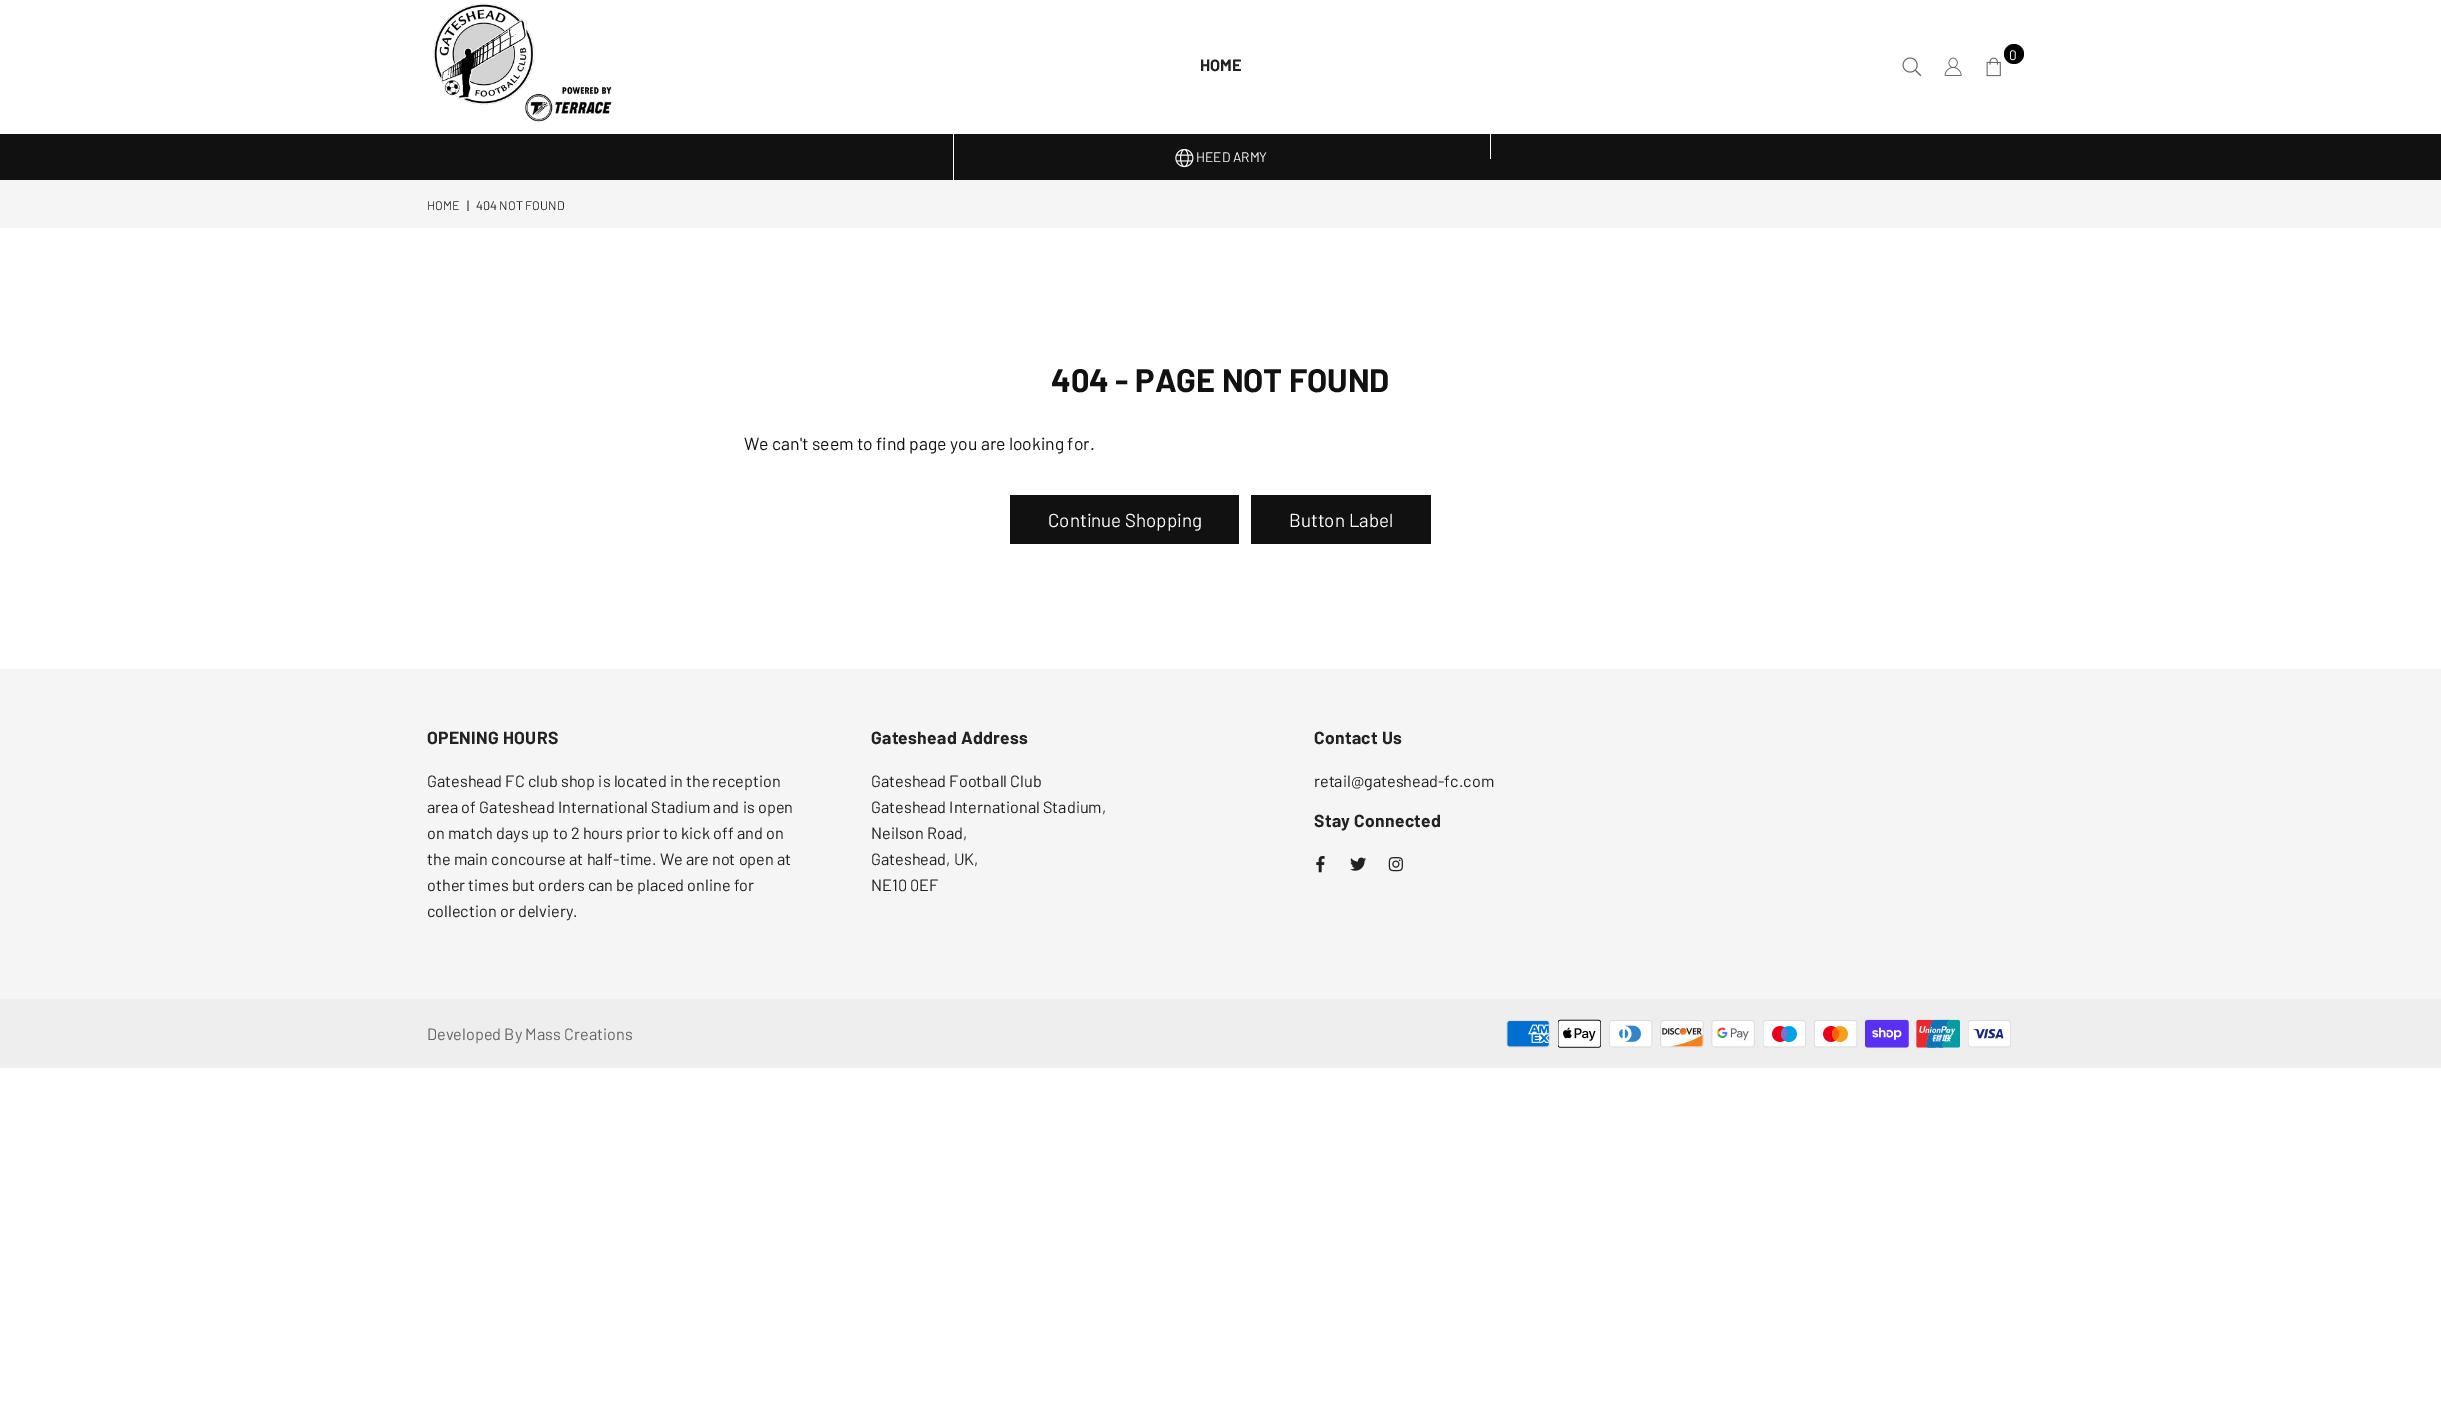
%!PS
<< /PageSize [2441 1420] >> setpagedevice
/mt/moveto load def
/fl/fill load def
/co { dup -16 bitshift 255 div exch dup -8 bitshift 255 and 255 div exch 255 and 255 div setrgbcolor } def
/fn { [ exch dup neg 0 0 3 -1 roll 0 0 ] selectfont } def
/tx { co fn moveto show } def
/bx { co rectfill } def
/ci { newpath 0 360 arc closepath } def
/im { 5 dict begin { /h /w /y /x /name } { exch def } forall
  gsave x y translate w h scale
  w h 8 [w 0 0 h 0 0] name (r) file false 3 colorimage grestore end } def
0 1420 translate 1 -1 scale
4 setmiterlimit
0 0 2441 1420 16#FFFFFF bx
(media/1.raw) 433 3 179 119 im
16#000000 co
2014 54 10 ci fl
(media/2.raw) 1986 57 15 20 im
(media/3.raw) 1902 57 20 20 im
(media/4.raw) 1944 57 18 19 im
0 134 2441 46 16#111111 bx
953 134 1 46 16#FFFFFF bx
(media/5.raw) 1175 149 19 19 im
1490 134 1 25 16#FFFFFF bx
0 180 2441 48 16#F5F5F5 bx
1010 495 229 49 16#111111 bx
1251 495 180 49 16#111111 bx
0 669 2441 330 16#F5F5F5 bx
(media/6.raw) 1316 856 9 17 im
(media/7.raw) 1350 857 17 14 im
(media/8.raw) 1388 857 15 15 im
0 999 2441 69 16#EEEEEE bx
(media/9.raw) 1506 1020 44 28 im
(media/10.raw) 1558 1019 43 29 im
(media/11.raw) 1609 1020 44 28 im
(media/12.raw) 1660 1020 44 28 im
(media/13.raw) 1711 1020 44 28 im
(media/14.raw) 1763 1020 43 28 im
(media/15.raw) 1814 1020 44 28 im
(media/16.raw) 1865 1019 44 29 im
(media/17.raw) 1916 1019 44 29 im
(media/18.raw) 1968 1020 43 28 im
(0) 2009 60 /Barlow-Regular 13.75 16#FFFFFF tx
(HOME) 1200 71 /Barlow-Bold 16.25 16#222222 tx
(HEED ARMY) 1196 162 /Barlow-Regular 13.75 16#FFFFFF tx
(HOME) 427 210 /Barlow-Regular 12.5 16#222222 tx
(|) 467 210 /Barlow-Regular 12.5 16#222222 tx
(404 NOT FOUND) 476 210 /Barlow-Regular 12.5 16#222222 tx
(404 - PAGE NOT FOUND) 1051 392 /Barlow-Bold 32.5 16#111111 tx
(We can't seem to find page you are looking for.) 744 450 /Barlow-Regular 17.5 16#111111 tx
(Continue Shopping) 1048 527 /Barlow-Regular 18.75 16#FFFFFF tx
(Button Label) 1289 527 /Barlow-Regular 18.75 16#FFFFFF tx
/Barlow-Bold 17.5 fn
16#222222 co
427 744 mt .3 0 (OPENING HOURS) ashow
(Gateshead FC club shop is located in the reception) 427 787 /Barlow-Regular 16.25 16#222222 tx
(area of Gateshead International Stadium and is open) 427 813 /Barlow-Regular 16.25 16#222222 tx
(on match days up to 2 hours prior to kick off and on) 427 839 /Barlow-Regular 16.25 16#222222 tx
(the main concourse at half-time. We are not open at) 427 865 /Barlow-Regular 16.25 16#222222 tx
(other times but orders can be placed online for) 427 891 /Barlow-Regular 16.25 16#222222 tx
(collection or delviery.) 427 917 /Barlow-Regular 16.25 16#222222 tx
/Barlow-Bold 17.5 fn
871 744 mt .3 0 (Gateshead Address) ashow
(Gateshead Football Club) 871 787 /Barlow-Regular 16.25 16#222222 tx
(Gateshead International Stadium,) 871 813 /Barlow-Regular 16.25 16#222222 tx
(Neilson Road,) 871 839 /Barlow-Regular 16.25 16#222222 tx
(Gateshead, UK,) 871 865 /Barlow-Regular 16.25 16#222222 tx
(NE10 0EF) 871 891 /Barlow-Regular 16.25 16#222222 tx
/Barlow-Bold 17.5 fn
1314 744 mt .3 0 (Contact Us) ashow
(retail@gateshead-fc.com) 1314 787 /Barlow-Regular 16.25 16#222222 tx
/Barlow-Bold 17.5 fn
1314 827 mt .3 0 (Stay Connected) ashow
(Developed By Mass Creations) 427 1040 /Barlow-Regular 16.25 16#666666 tx
showpage
